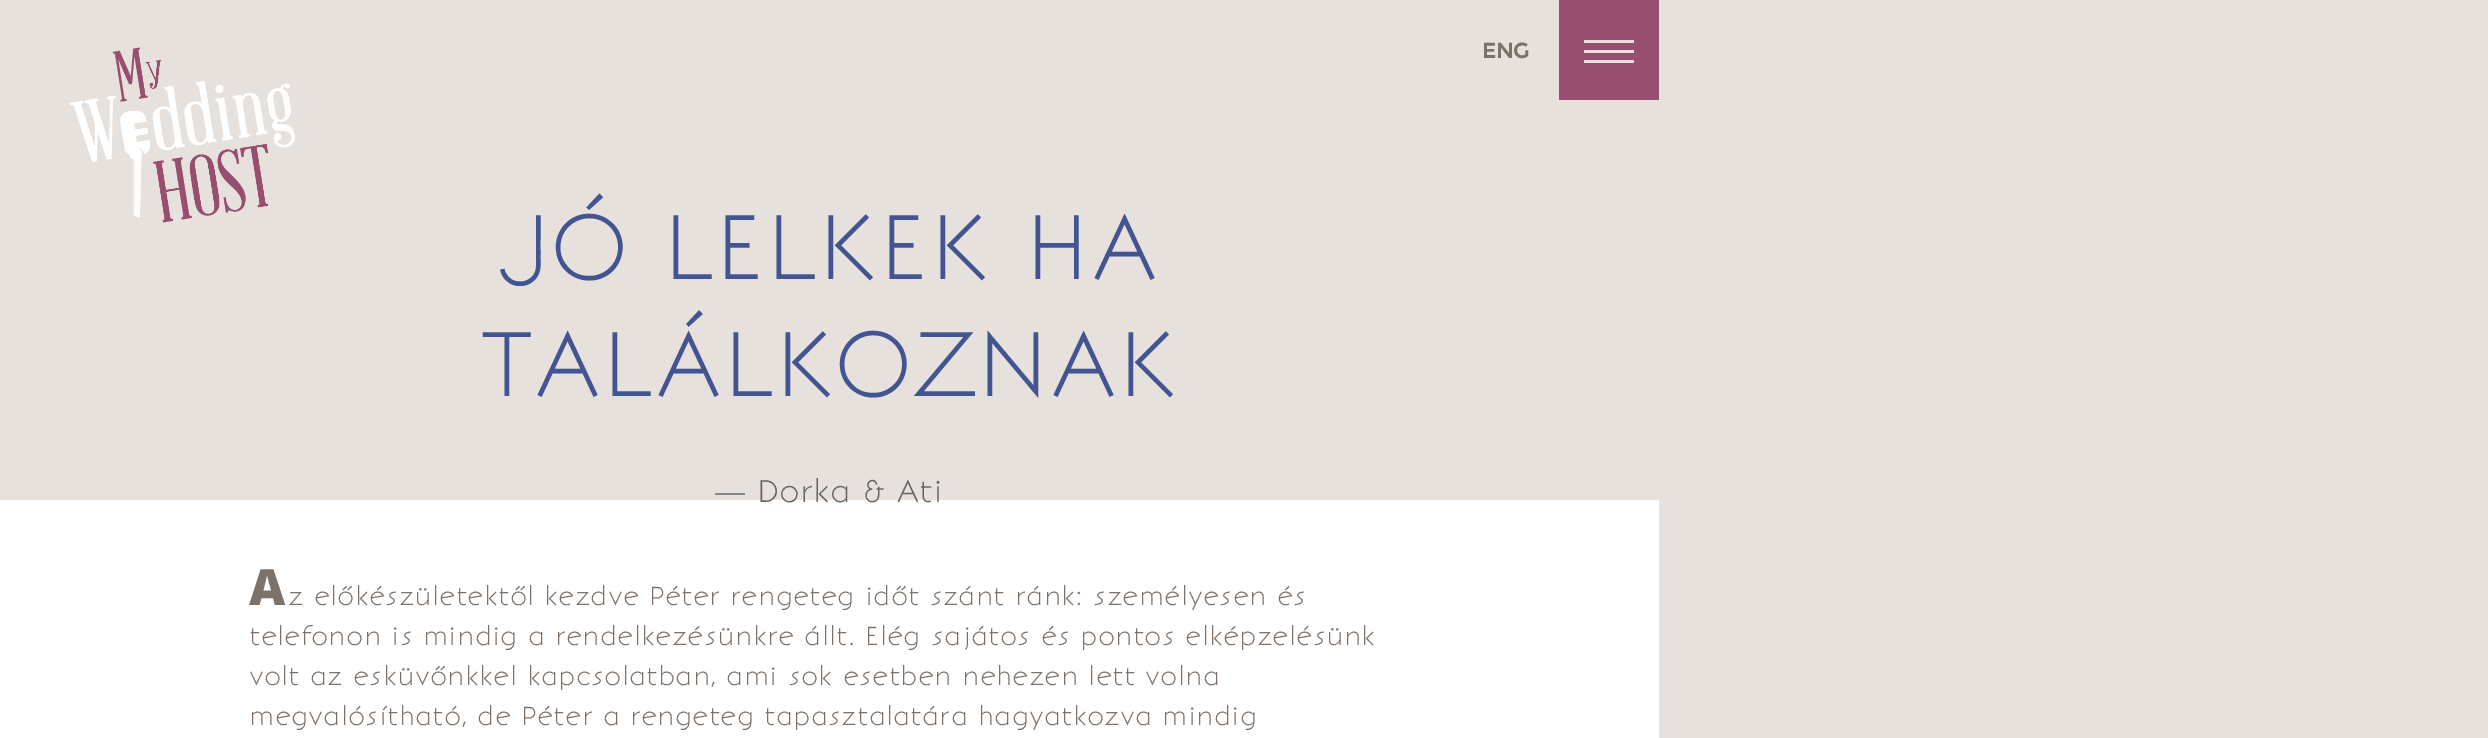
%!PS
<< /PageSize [2488 738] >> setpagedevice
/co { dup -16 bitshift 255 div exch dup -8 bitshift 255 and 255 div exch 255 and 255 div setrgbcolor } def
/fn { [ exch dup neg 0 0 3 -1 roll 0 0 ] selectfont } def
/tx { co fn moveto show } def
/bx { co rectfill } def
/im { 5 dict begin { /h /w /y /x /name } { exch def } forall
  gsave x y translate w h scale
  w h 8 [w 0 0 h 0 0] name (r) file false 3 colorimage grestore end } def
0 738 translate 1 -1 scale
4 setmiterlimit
0 0 2488 738 16#FFFFFF bx
0 0 1659 500 16#E6E1DD bx
1559 0 100 100 16#984E6F bx
1584 40 50 3 16#E6E1DD bx
1584 50 50 3 16#E6E1DD bx
1584 60 50 3 16#E6E1DD bx
1659 0 829 738 16#E6E1DD bx
(media/1.raw) 70 47 225 176 im
(ENG) 1482 58 /Montserrat-Bold 21 16#7C7269 tx
(JÓ LELKEK HA) 500 279 /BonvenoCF-Light 87.5 16#425590 tx
(TALÁLKOZNAK) 481 396 /BonvenoCF-Light 87.5 16#425590 tx
(— Dorka & Ati) 715 502 /BonvenoCF-Light 30 16#666467 tx
(A) 249 605 /NotoSans-Black 50 16#7C7269 tx
(z előkészületektől kezdve Péter rengeteg időt szánt ránk: személyesen és) 288 605 /BonvenoCF-Light 25 16#7C7269 tx
(telefonon is mindig a rendelkezésünkre állt. Elég sajátos és pontos elképzelésünk) 249 645 /BonvenoCF-Light 25 16#7C7269 tx
(volt az esküvőnkkel kapcsolatban, ami sok esetben nehezen lett volna) 249 685 /BonvenoCF-Light 25 16#7C7269 tx
(megvalósítható, de Péter a rengeteg tapasztalatára hagyatkozva mindig) 249 725 /BonvenoCF-Light 25 16#7C7269 tx
showpage
